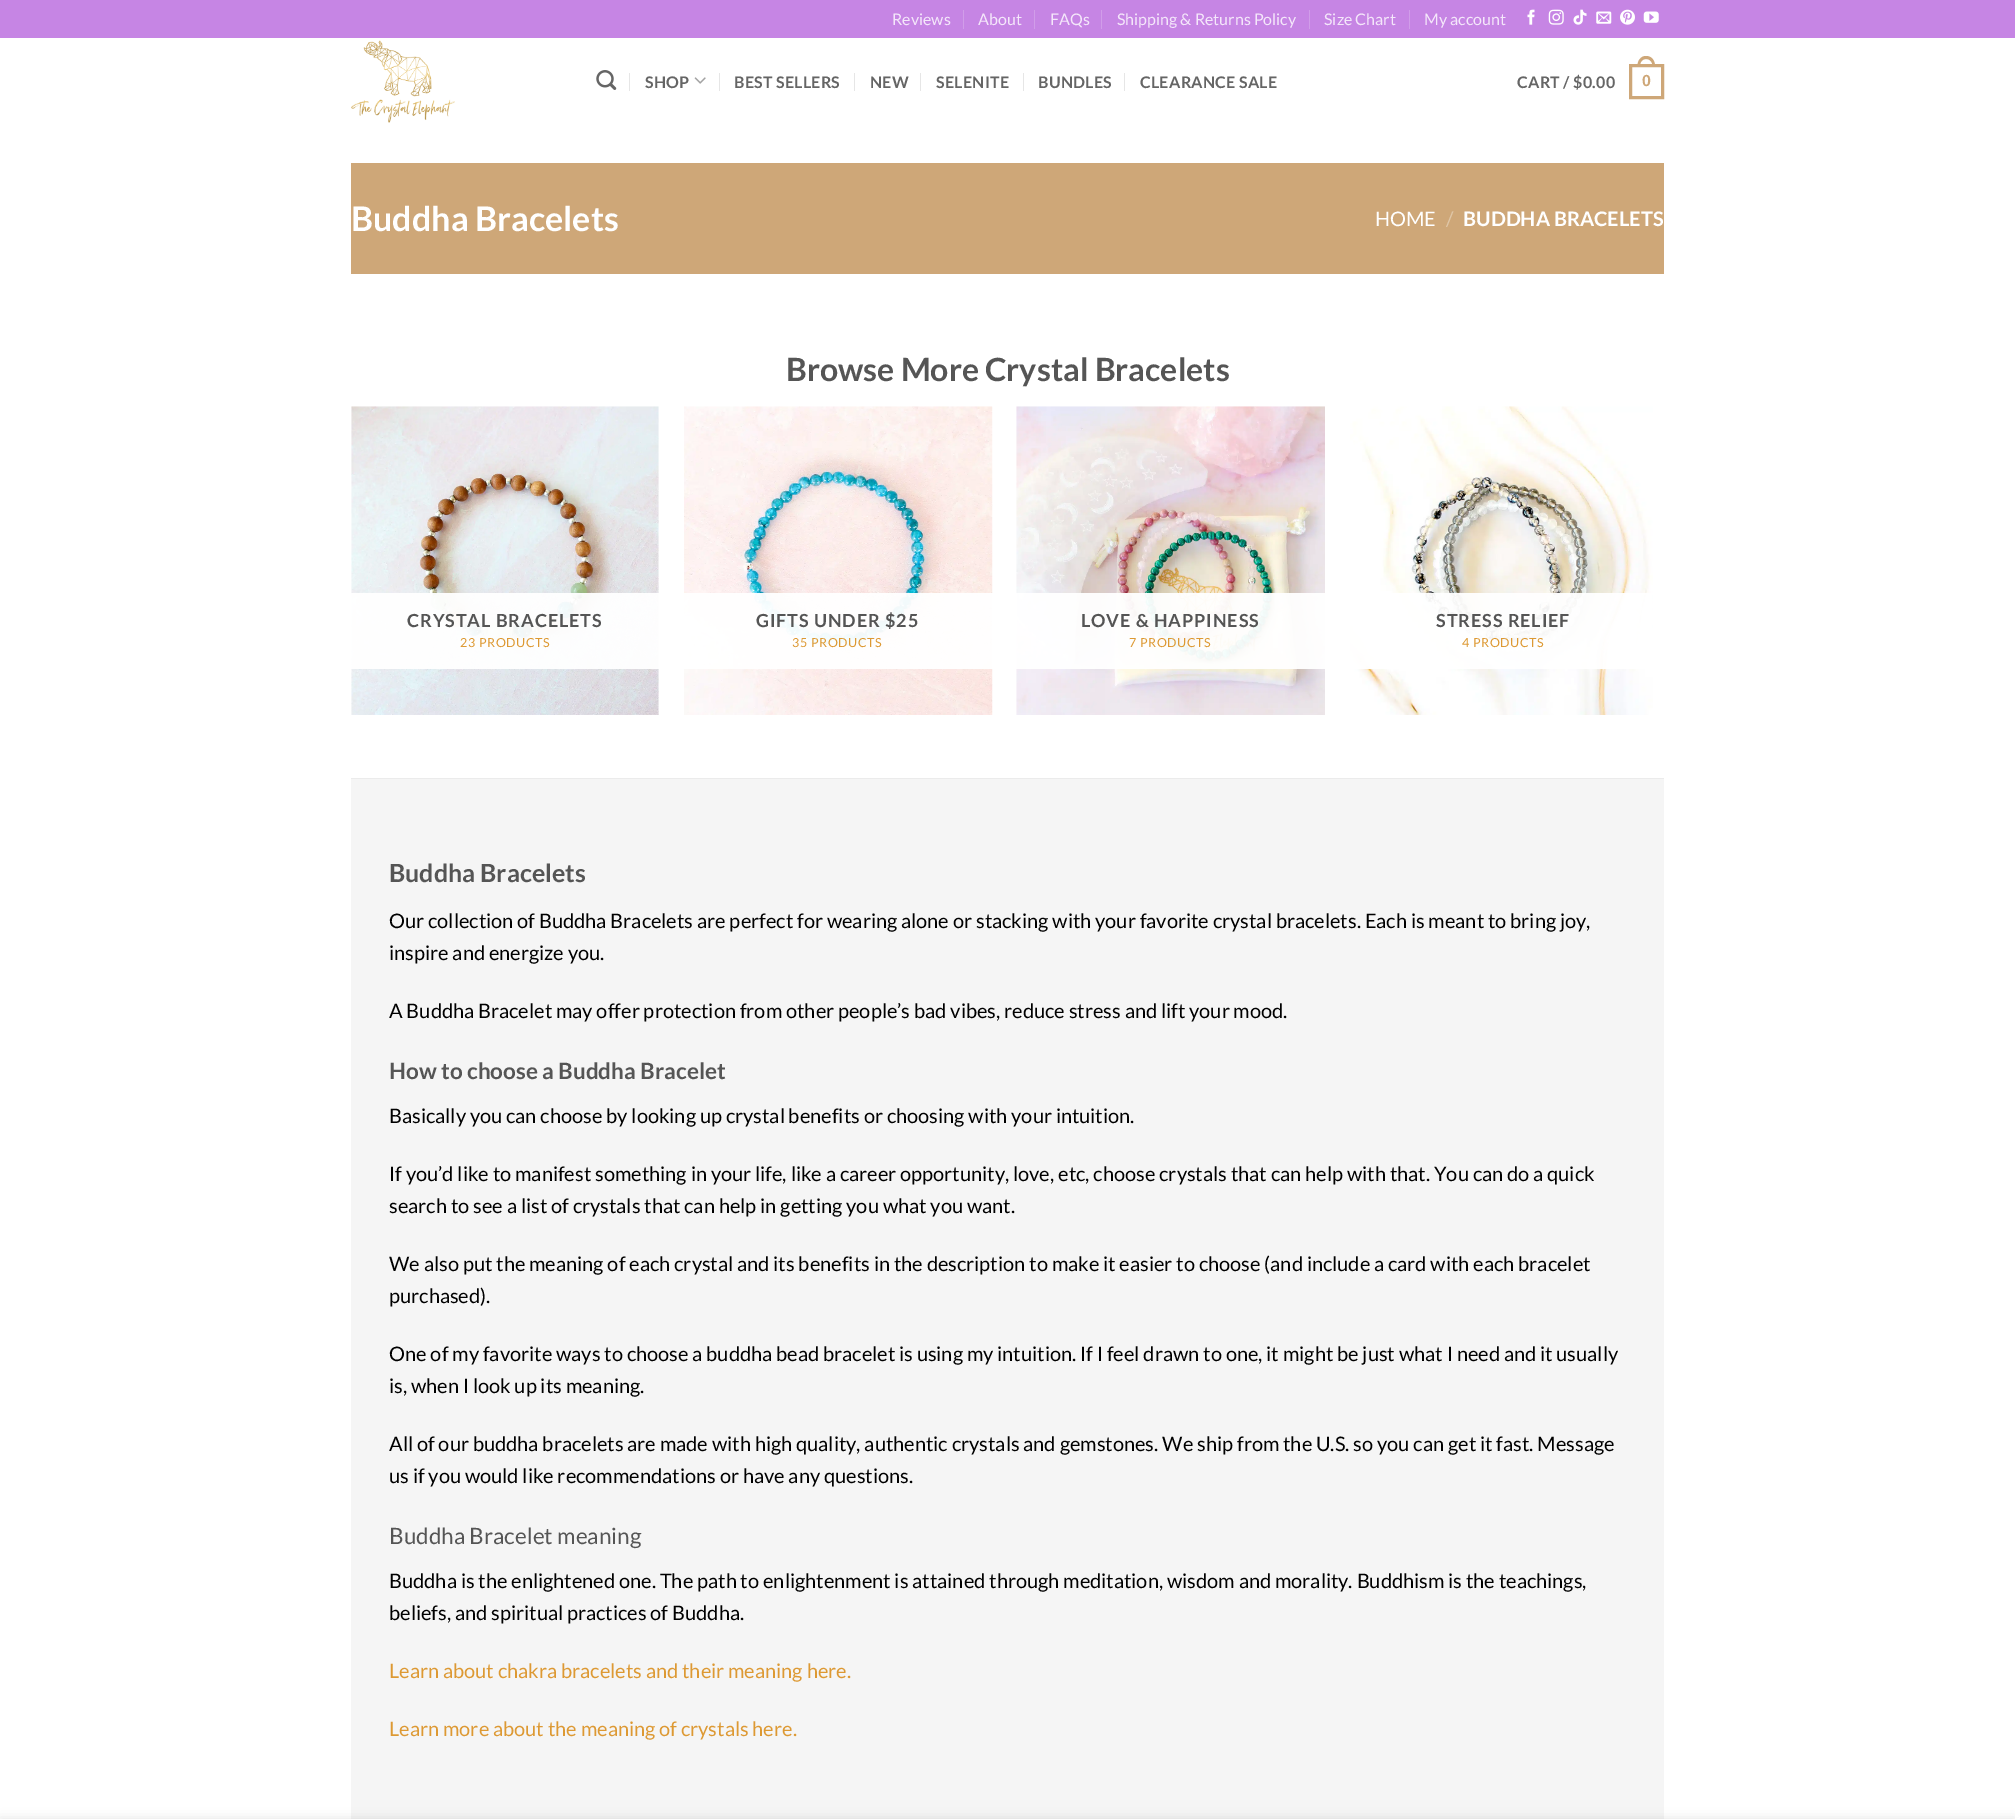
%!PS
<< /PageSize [2015 1819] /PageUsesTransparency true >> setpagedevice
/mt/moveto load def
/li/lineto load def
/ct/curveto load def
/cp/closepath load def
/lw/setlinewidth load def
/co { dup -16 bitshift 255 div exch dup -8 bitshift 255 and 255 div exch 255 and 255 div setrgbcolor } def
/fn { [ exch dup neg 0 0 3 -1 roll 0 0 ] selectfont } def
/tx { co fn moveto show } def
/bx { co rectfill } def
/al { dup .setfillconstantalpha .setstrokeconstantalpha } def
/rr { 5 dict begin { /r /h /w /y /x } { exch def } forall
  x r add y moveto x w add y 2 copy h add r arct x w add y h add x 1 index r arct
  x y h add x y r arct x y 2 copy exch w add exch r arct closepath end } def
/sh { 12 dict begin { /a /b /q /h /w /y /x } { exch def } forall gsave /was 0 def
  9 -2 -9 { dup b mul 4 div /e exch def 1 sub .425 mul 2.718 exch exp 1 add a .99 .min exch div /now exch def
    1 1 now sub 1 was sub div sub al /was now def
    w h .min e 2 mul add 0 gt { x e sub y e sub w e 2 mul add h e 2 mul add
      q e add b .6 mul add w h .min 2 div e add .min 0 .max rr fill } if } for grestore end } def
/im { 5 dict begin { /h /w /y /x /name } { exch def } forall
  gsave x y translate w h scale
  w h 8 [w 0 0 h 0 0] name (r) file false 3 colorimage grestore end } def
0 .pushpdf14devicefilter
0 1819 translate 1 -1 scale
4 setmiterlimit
0 0 2015 1819 16#FFFFFF bx
0 0 2015 38 16#C685E4 bx
963 10 1 19 16#D19DE9 bx
1034 10 1 19 16#D19DE9 bx
1101 10 1 19 16#D19DE9 bx
1309 10 1 19 16#D19DE9 bx
1409 10 1 19 16#D19DE9 bx
(media/1.raw) 1527 9 8 16 im
(media/2.raw) 1548 9 16 16 im
(media/3.raw) 1573 9 14 16 im
(media/4.raw) 1596 11 16 13 im
(media/5.raw) 1620 9 15 16 im
(media/6.raw) 1643 11 16 12 im
(media/7.raw) 351 40 104 83 im
(media/8.raw) 596 70 21 20 im
629 73 1 18 16#E6E6E6 bx
(media/9.raw) 694 77 12 7 im
719 73 1 18 16#E6E6E6 bx
854 73 1 18 16#E6E6E6 bx
920 73 1 18 16#E6E6E6 bx
1023 73 1 18 16#E6E6E6 bx
1124 73 1 18 16#E6E6E6 bx
16#CEA778 co
3 lw
1630.5 65.5 32 32 rectstroke
1646 56 mt 1652 56 1655 61 1655 66 ct 1637.5 66 li 1637.5 61 1640.5 56 1646 56 ct cp 1646 59 mt 1650.5 59 1652.5 62.5 1652.5 66 ct 1640 66 li 1640 62.5 1642 59 1646 59 ct cp eofill
351 163 1313 111 16#CEA778 bx
(media/10.raw) 351 406 308 309 im
0.95 al
351 593 308 76 16#FFFFFF bx
1 al
(media/11.raw) 684 406 309 309 im
0.95 al
684 593 309 76 16#FFFFFF bx
1 al
(media/12.raw) 1016 406 309 309 im
0.95 al
1016 593 309 76 16#FFFFFF bx
1 al
(media/13.raw) 1350 406 303 309 im
0.95 al
1350 593 302 76 16#FFFFFF bx
1 al
351 779 1313 1040 16#F5F5F5 bx
351 778 1313 1 16#EBEBEB bx
16#000000 co
0 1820 2015 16 0 5.5 .14 sh
(Reviews) 892 25 /Lato-Regular 16 16#F4E7FA tx
(About) 978 25 /Lato-Regular 16 16#F4E7FA tx
(FAQs) 1050 25 /Lato-Regular 16 16#F4E7FA tx
(Shipping & Returns Policy) 1117 25 /Lato-Regular 16 16#F4E7FA tx
(Size Chart) 1324 25 /Lato-Regular 16 16#F4E7FA tx
(My account) 1424 25 /Lato-Regular 16 16#F4E7FA tx
/Lato-Bold 16 fn
16#656565 co
645 88 mt .25 0 (SHOP) ashow
734 88 mt .25 0 (BEST SELLERS) ashow
870 88 mt .25 0 (NEW) ashow
936 88 mt .25 0 (SELENITE) ashow
1038 88 mt .25 0 (BUNDLES) ashow
1140 88 mt .25 0 (CLEARANCE SALE) ashow
1517 88 mt .25 0 (CART / $0.00) ashow
/LiberationSans-Bold 16 fn
16#CEA778 co
1642 86 mt .25 0 (0) ashow
(Buddha Bracelets) 351 231 /Lato-Bold 34 16#FFFFFF tx
(HOME) 1375 226 /Lato-Regular 20 16#FFFFFF tx
(/) 1446 226 /Lato-Regular 20 16#DFC6A7 tx
(BUDDHA BRACELETS) 1463 226 /Lato-Bold 20 16#FFFFFF tx
(Browse More Crystal Bracelets) 786 381 /Lato-Bold 32 16#555555 tx
/Lato-Bold 18 fn
407 627 mt .9 0 (CRYSTAL BRACELETS) ashow
/Lato-Regular 12.5 fn
16#DD9933 co
460 647 mt .6 0 (23 PRODUCTS) ashow
/Lato-Bold 18 fn
16#555555 co
756 627 mt .9 0 (GIFTS UNDER $25) ashow
/Lato-Regular 12.5 fn
16#DD9933 co
792 647 mt .6 0 (35 PRODUCTS) ashow
/Lato-Bold 18 fn
16#555555 co
1081 627 mt .9 0 (LOVE & HAPPINESS) ashow
/Lato-Regular 12.5 fn
16#DD9933 co
1129 647 mt .6 0 (7 PRODUCTS) ashow
/Lato-Bold 18 fn
16#555555 co
1436 627 mt .9 0 (STRESS RELIEF) ashow
/Lato-Regular 12.5 fn
16#DD9933 co
1462 647 mt .6 0 (4 PRODUCTS) ashow
(Buddha Bracelets) 389 882 /Lato-Bold 25 16#555555 tx
(Our collection of Buddha Bracelets are perfect for wearing alone or stacking with your favorite crystal bracelets. Each is meant to bring joy,) 389 928 /Lato-Regular 20 16#000000 tx
(inspire and energize you.) 389 960 /Lato-Regular 20 16#000000 tx
(A Buddha Bracelet may offer protection from other people’s bad vibes, reduce stress and lift your mood.) 389 1018 /Lato-Regular 20 16#000000 tx
(How to choose a Buddha Bracelet) 389 1079 /Lato-Bold 22.5 16#555555 tx
(Basically you can choose by looking up crystal benefits or choosing with your intuition.) 389 1123 /Lato-Regular 20 16#000000 tx
(If you’d like to manifest something in your life, like a career opportunity, love, etc, choose crystals that can help with that. You can do a quick) 389 1181 /Lato-Regular 20 16#000000 tx
(search to see a list of crystals that can help in getting you what you want.) 389 1213 /Lato-Regular 20 16#000000 tx
(We also put the meaning of each crystal and its benefits in the description to make it easier to choose \(and include a card with each bracelet) 389 1271 /Lato-Regular 20 16#000000 tx
(purchased\).) 389 1303 /Lato-Regular 20 16#000000 tx
(One of my favorite ways to choose a buddha bead bracelet is using my intuition. If I feel drawn to one, it might be just what I need and it usually) 389 1361 /Lato-Regular 20 16#000000 tx
(is, when I look up its meaning.) 389 1393 /Lato-Regular 20 16#000000 tx
(All of our buddha bracelets are made with high quality, authentic crystals and gemstones. We ship from the U.S. so you can get it fast. Message) 389 1451 /Lato-Regular 20 16#000000 tx
(us if you would like recommendations or have any questions.) 389 1483 /Lato-Regular 20 16#000000 tx
(Buddha Bracelet meaning) 389 1544 /Lato-Regular 22.5 16#555555 tx
(Buddha is the enlightened one. The path to enlightenment is attained through meditation, wisdom and morality. Buddhism is the teachings,) 389 1588 /Lato-Regular 20 16#000000 tx
(beliefs, and spiritual practices of Buddha.) 389 1620 /Lato-Regular 20 16#000000 tx
(Learn about chakra bracelets and their meaning here.) 389 1678 /Lato-Regular 20 16#DD9933 tx
(Learn more about the meaning of crystals here.) 389 1736 /Lato-Regular 20 16#DD9933 tx
.poppdf14devicefilter showpage
